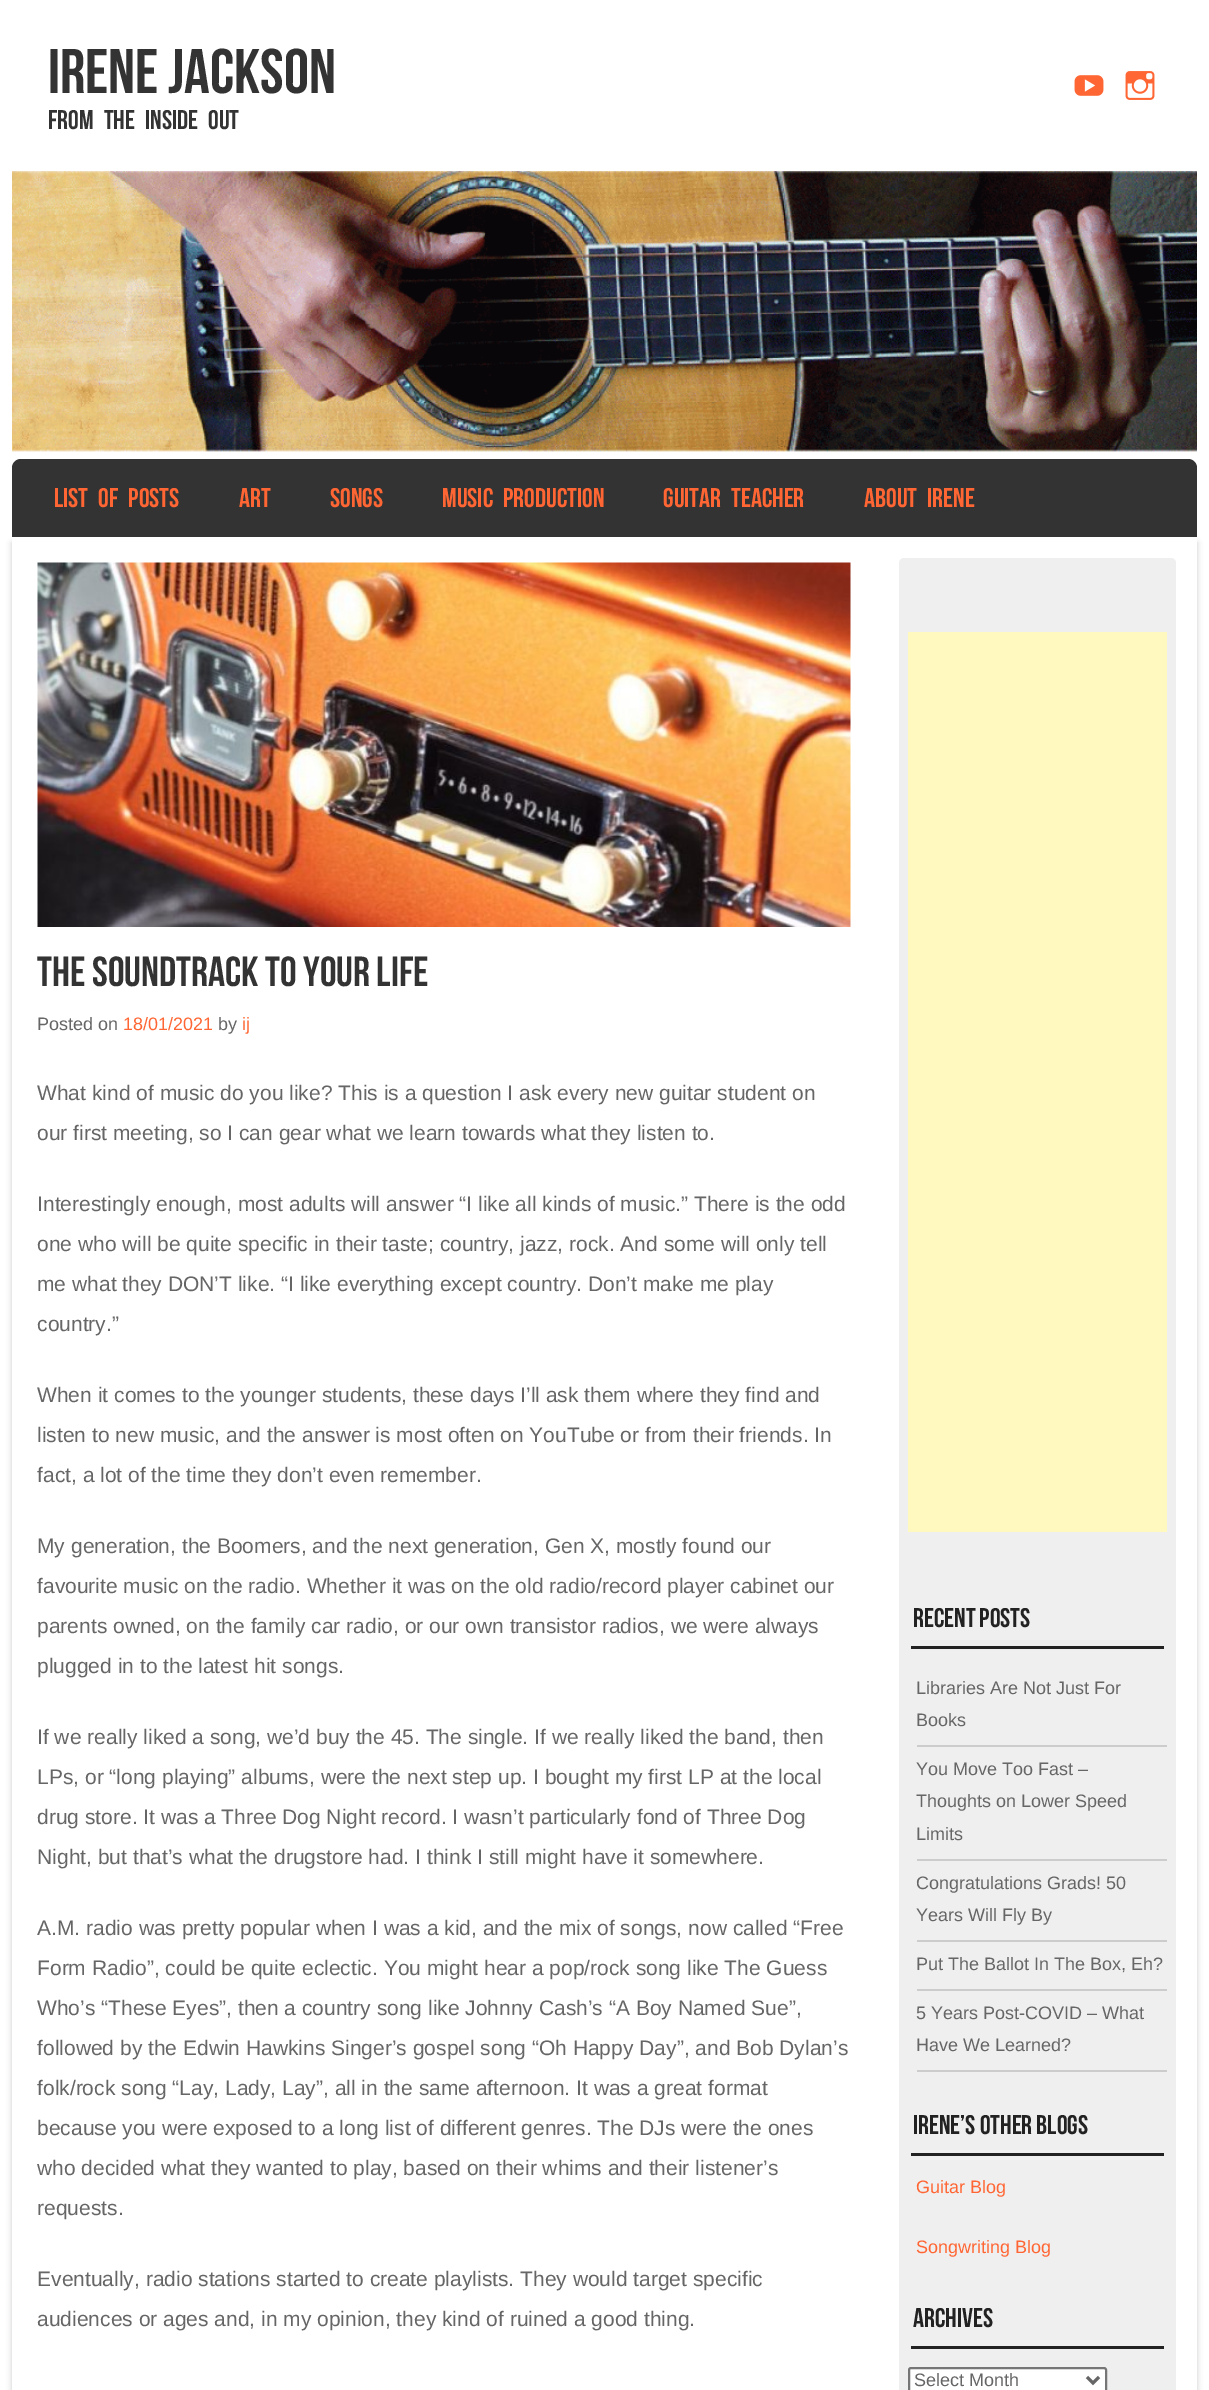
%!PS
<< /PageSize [1209 2390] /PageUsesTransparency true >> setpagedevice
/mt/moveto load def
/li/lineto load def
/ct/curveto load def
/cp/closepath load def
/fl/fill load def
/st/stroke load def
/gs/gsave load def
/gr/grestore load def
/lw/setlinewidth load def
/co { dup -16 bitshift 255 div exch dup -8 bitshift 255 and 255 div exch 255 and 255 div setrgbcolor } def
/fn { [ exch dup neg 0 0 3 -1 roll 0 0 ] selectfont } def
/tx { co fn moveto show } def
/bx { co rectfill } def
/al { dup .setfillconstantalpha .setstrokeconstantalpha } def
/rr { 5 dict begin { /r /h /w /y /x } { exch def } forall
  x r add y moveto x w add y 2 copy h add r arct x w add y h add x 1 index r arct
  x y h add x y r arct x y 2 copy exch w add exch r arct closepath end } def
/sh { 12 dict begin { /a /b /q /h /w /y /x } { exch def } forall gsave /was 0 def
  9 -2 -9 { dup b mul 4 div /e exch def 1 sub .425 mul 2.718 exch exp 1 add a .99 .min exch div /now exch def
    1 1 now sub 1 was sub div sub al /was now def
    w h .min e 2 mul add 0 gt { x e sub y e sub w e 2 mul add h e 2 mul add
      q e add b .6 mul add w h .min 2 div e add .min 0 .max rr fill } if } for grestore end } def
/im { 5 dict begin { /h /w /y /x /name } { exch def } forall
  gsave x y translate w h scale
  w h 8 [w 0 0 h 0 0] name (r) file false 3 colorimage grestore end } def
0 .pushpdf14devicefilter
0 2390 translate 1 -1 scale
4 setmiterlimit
0 0 1209 2390 16#FFFFFF bx
(media/1.raw) 1074 75 30 21 im
(media/2.raw) 1125 71 30 29 im
(media/3.raw) 12 171 1185 281 im
16#333333 co
21 459 mt 1188 459 li 1193 459 1197 463 1197 468 ct 1197 537 li 12 537 li 12 468 li 12 463 16 459 21 459 ct cp fl
gs
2 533 mt 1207 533 li 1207 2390 li 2 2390 li cp 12 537 mt 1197 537 li 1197 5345 li 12 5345 li cp eoclip newpath
16#000000 co
12 543 1185 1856 0 3 .2 sh
gr
(media/4.raw) 37 562 814 365 im
16#EFEFEF co
899 558 277 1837 5 rr fl
908 632 259 900 16#FFF9C0 bx
911 1646 253 3 16#222222 bx
917 1745 250 2 16#CCCCCC bx
917 1859 250 2 16#CCCCCC bx
917 1940 250 2 16#CCCCCC bx
917 1989 250 2 16#CCCCCC bx
917 2070 250 2 16#CCCCCC bx
911 2153 253 3 16#222222 bx
911 2346 253 3 16#222222 bx
16#FFFFFF co
909 2368 197 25 2 rr gs fl gr
16#767676 co
2 lw
st
16#666666 co
3 lw
1087 2377 mt 1093 2383 li 1099 2377 li st
(Irene Jackson) 48 93 /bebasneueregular-Regular 63 16#333333 tx
/bebasneueregular-Regular 27 fn
48 129 mt 6 0 32 (From The Inside Out) widthshow
16#FF6633 co
54 507 mt 6 0 32 (LIST OF POSTS) widthshow
(ART) 239 507 /bebasneueregular-Regular 27 16#FF6633 tx
(SONGS) 330 507 /bebasneueregular-Regular 27 16#FF6633 tx
442 507 mt 6 0 32 (MUSIC PRODUCTION) widthshow
663 507 mt 6 0 32 (GUITAR TEACHER) widthshow
864 507 mt 6 0 32 (ABOUT IRENE) widthshow
(The Soundtrack To Your Life) 37 986 /bebasneueregular-Regular 42 16#333333 tx
(Posted on) 37 1030 /LiberationSans-Regular 18 16#666666 tx
(18/01/2021) 123 1030 /LiberationSans-Regular 18 16#FF6633 tx
(by) 218 1030 /LiberationSans-Regular 18 16#666666 tx
(ij) 242 1030 /LiberationSans-Regular 18 16#FF6633 tx
(What kind of music do you like? This is a question I ask every new guitar student on) 37 1100 /LiberationSans-Regular 21 16#666666 tx
(our first meeting, so I can gear what we learn towards what they listen to.) 37 1140 /LiberationSans-Regular 21 16#666666 tx
(Interestingly enough, most adults will answer “I like all kinds of music.” There is the odd) 37 1211 /LiberationSans-Regular 21 16#666666 tx
(one who will be quite specific in their taste; country, jazz, rock. And some will only tell) 37 1251 /LiberationSans-Regular 21 16#666666 tx
(me what they DON’T like. “I like everything except country. Don’t make me play) 37 1291 /LiberationSans-Regular 21 16#666666 tx
(country.”) 37 1331 /LiberationSans-Regular 21 16#666666 tx
(When it comes to the younger students, these days I’ll ask them where they find and) 37 1402 /LiberationSans-Regular 21 16#666666 tx
(listen to new music, and the answer is most often on YouTube or from their friends. In) 37 1442 /LiberationSans-Regular 21 16#666666 tx
(fact, a lot of the time they don’t even remember.) 37 1482 /LiberationSans-Regular 21 16#666666 tx
(My generation, the Boomers, and the next generation, Gen X, mostly found our) 37 1553 /LiberationSans-Regular 21 16#666666 tx
(favourite music on the radio. Whether it was on the old radio/record player cabinet our) 37 1593 /LiberationSans-Regular 21 16#666666 tx
(parents owned, on the family car radio, or our own transistor radios, we were always) 37 1633 /LiberationSans-Regular 21 16#666666 tx
(plugged in to the latest hit songs.) 37 1673 /LiberationSans-Regular 21 16#666666 tx
(If we really liked a song, we’d buy the 45. The single. If we really liked the band, then) 37 1744 /LiberationSans-Regular 21 16#666666 tx
(LPs, or “long playing” albums, were the next step up. I bought my first LP at the local) 37 1784 /LiberationSans-Regular 21 16#666666 tx
(drug store. It was a Three Dog Night record. I wasn’t particularly fond of Three Dog) 37 1824 /LiberationSans-Regular 21 16#666666 tx
(Night, but that’s what the drugstore had. I think I still might have it somewhere.) 37 1864 /LiberationSans-Regular 21 16#666666 tx
(A.M. radio was pretty popular when I was a kid, and the mix of songs, now called “Free) 37 1935 /LiberationSans-Regular 21 16#666666 tx
(Form Radio”, could be quite eclectic. You might hear a pop/rock song like The Guess) 37 1975 /LiberationSans-Regular 21 16#666666 tx
(Who’s “These Eyes”, then a country song like Johnny Cash’s “A Boy Named Sue”,) 37 2015 /LiberationSans-Regular 21 16#666666 tx
(followed by the Edwin Hawkins Singer’s gospel song “Oh Happy Day”, and Bob Dylan’s) 37 2055 /LiberationSans-Regular 21 16#666666 tx
(folk/rock song “Lay, Lady, Lay”, all in the same afternoon. It was a great format) 37 2095 /LiberationSans-Regular 21 16#666666 tx
(because you were exposed to a long list of different genres. The DJs were the ones) 37 2135 /LiberationSans-Regular 21 16#666666 tx
(who decided what they wanted to play, based on their whims and their listener’s) 37 2175 /LiberationSans-Regular 21 16#666666 tx
(requests.) 37 2215 /LiberationSans-Regular 21 16#666666 tx
(Eventually, radio stations started to create playlists. They would target specific) 37 2286 /LiberationSans-Regular 21 16#666666 tx
(audiences or ages and, in my opinion, they kind of ruined a good thing.) 37 2326 /LiberationSans-Regular 21 16#666666 tx
(Recent Posts) 913 1627 /bebasneueregular-Regular 27 16#222222 tx
(Libraries Are Not Just For) 916 1694 /LiberationSans-Regular 18 16#666666 tx
(Books) 916 1726 /LiberationSans-Regular 18 16#666666 tx
(You Move Too Fast –) 916 1775 /LiberationSans-Regular 18 16#666666 tx
(Thoughts on Lower Speed) 916 1807 /LiberationSans-Regular 18 16#666666 tx
(Limits) 916 1840 /LiberationSans-Regular 18 16#666666 tx
(Congratulations Grads! 50) 916 1889 /LiberationSans-Regular 18 16#666666 tx
(Years Will Fly By) 916 1921 /LiberationSans-Regular 18 16#666666 tx
(Put The Ballot In The Box, Eh?) 916 1970 /LiberationSans-Regular 18 16#666666 tx
(5 Years Post-COVID – What) 916 2019 /LiberationSans-Regular 18 16#666666 tx
(Have We Learned?) 916 2051 /LiberationSans-Regular 18 16#666666 tx
(Irene’s Other Blogs) 913 2134 /bebasneueregular-Regular 27 16#222222 tx
(Guitar Blog) 916 2193 /LiberationSans-Regular 18 16#FF6633 tx
(Songwriting Blog) 916 2253 /LiberationSans-Regular 18 16#FF6633 tx
(Archives) 913 2327 /bebasneueregular-Regular 27 16#222222 tx
(Select Month) 914 2386 /LiberationSans-Regular 18 16#666666 tx
.poppdf14devicefilter showpage
